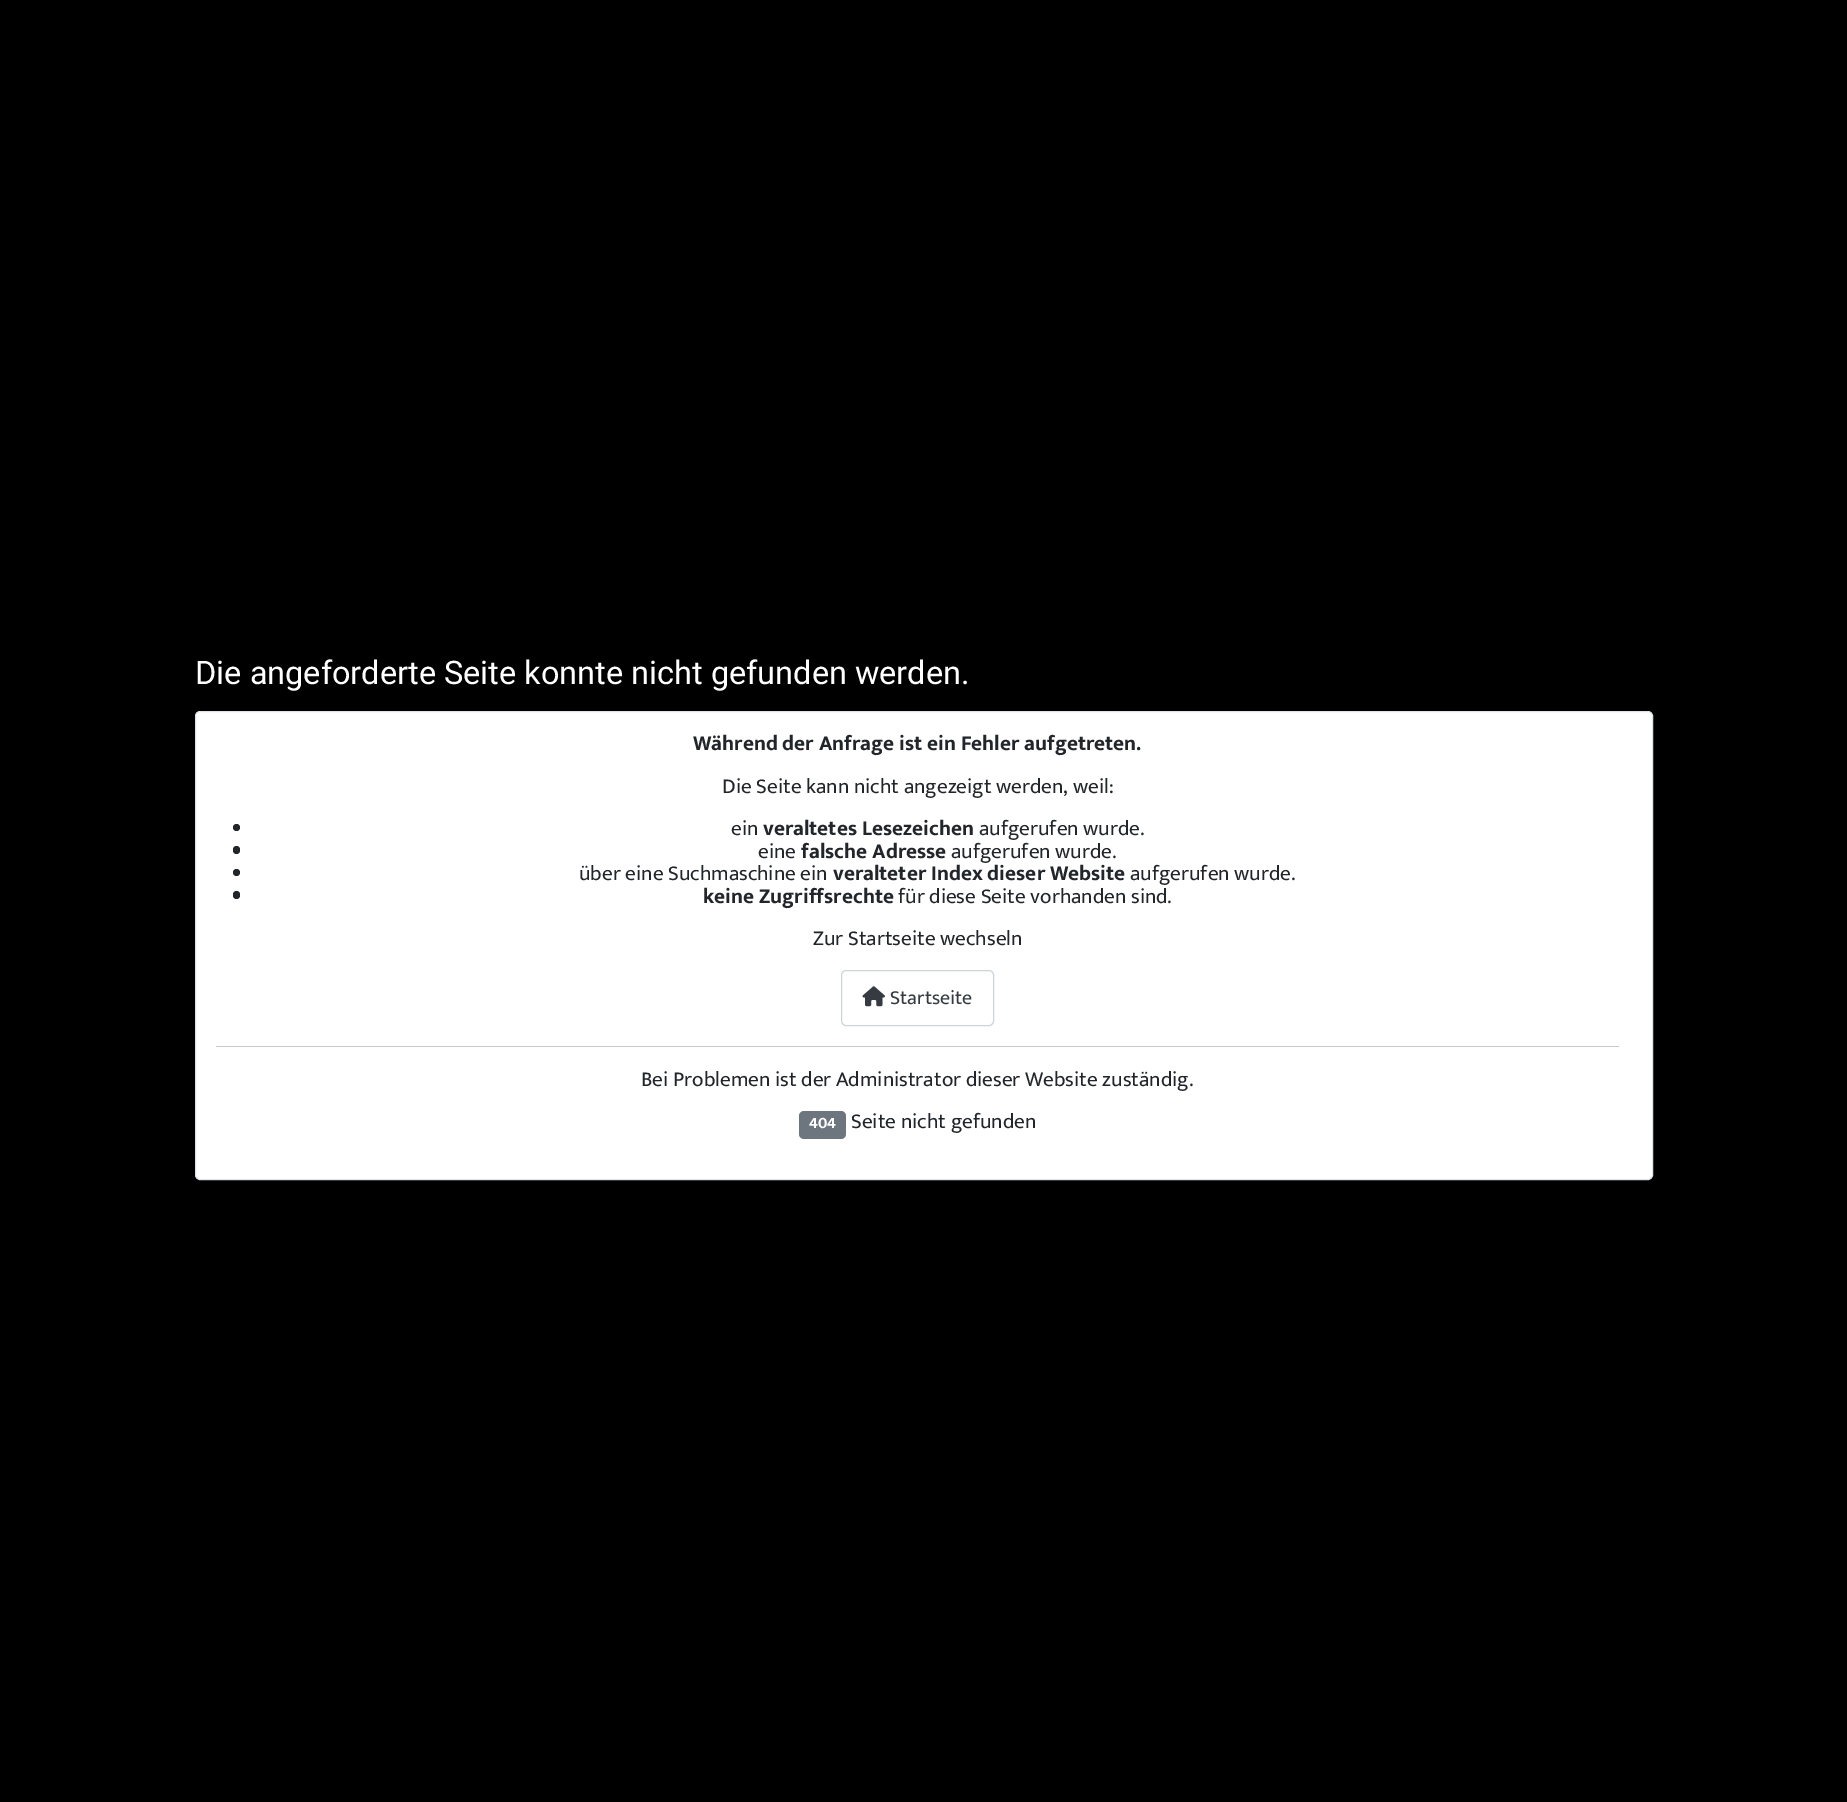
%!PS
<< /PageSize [1847 1802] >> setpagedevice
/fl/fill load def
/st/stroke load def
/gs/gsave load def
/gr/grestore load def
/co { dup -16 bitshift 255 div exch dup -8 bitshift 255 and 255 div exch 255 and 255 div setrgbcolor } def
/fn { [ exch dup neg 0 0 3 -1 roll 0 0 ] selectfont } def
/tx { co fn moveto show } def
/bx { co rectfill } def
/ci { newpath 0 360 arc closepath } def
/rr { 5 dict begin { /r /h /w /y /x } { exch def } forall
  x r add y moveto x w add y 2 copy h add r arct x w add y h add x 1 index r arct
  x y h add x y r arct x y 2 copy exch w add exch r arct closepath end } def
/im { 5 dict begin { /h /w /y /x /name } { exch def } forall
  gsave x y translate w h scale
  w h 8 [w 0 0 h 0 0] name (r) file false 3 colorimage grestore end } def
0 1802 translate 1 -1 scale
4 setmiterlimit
0 0 1847 1802 16#000000 bx
16#FFFFFF co
195.5 711.5 1457 468 4.5 rr gs fl gr
16#DFE3E7 co
st
16#22262A co
236.5 827.5 3.5 ci fl
233 846 7 8 3.5 rr fl
236.5 872.5 3.5 ci fl
233 891 7 8 3.5 rr fl
16#CED4DA co
841.5 970.5 152 55 4.5 rr st
(media/1.raw) 862 986 23 21 im
216 1046 1403 1 16#C8C9CA bx
16#6D757E co
799 1111 47 28 5 rr fl
(Die angeforderte Seite konnte nicht gefunden werden.) 195 684 /Roboto-Regular 32.5 16#FFFFFF tx
(Während der Anfrage ist ein Fehler aufgetreten.) 693 750 /Mukta-Bold 21.25 16#22262A tx
(Die Seite kann nicht angezeigt werden, weil:) 722 793 /Mukta-Regular 21.25 16#22262A tx
(ein) 731 835 /Mukta-Regular 21.25 16#22262A tx
(veraltetes Lesezeichen) 763 835 /Mukta-Bold 21.25 16#22262A tx
(aufgerufen wurde.) 979 835 /Mukta-Regular 21.25 16#22262A tx
(eine) 758 858 /Mukta-Regular 21.25 16#22262A tx
(falsche Adresse) 801 858 /Mukta-Bold 21.25 16#22262A tx
(aufgerufen wurde.) 951 858 /Mukta-Regular 21.25 16#22262A tx
(über eine Suchmaschine ein) 579 880 /Mukta-Regular 21.25 16#22262A tx
(veralteter Index dieser Website) 833 880 /Mukta-Bold 21.25 16#22262A tx
(aufgerufen wurde.) 1130 880 /Mukta-Regular 21.25 16#22262A tx
(keine Zugriffsrechte) 703 903 /Mukta-Bold 21.25 16#22262A tx
(für diese Seite vorhanden sind.) 898 903 /Mukta-Regular 21.25 16#22262A tx
(Zur Startseite wechseln) 813 945 /Mukta-Regular 21.25 16#22262A tx
(Startseite) 890 1004 /Mukta-Regular 20 16#353B41 tx
(Bei Problemen ist der Administrator dieser Website zuständig.) 641 1086 /Mukta-Regular 21.25 16#22262A tx
(404) 809 1128 /Mukta-Bold 16 16#FFFFFF tx
(Seite nicht gefunden) 851 1128 /Mukta-Regular 21.25 16#22262A tx
showpage
